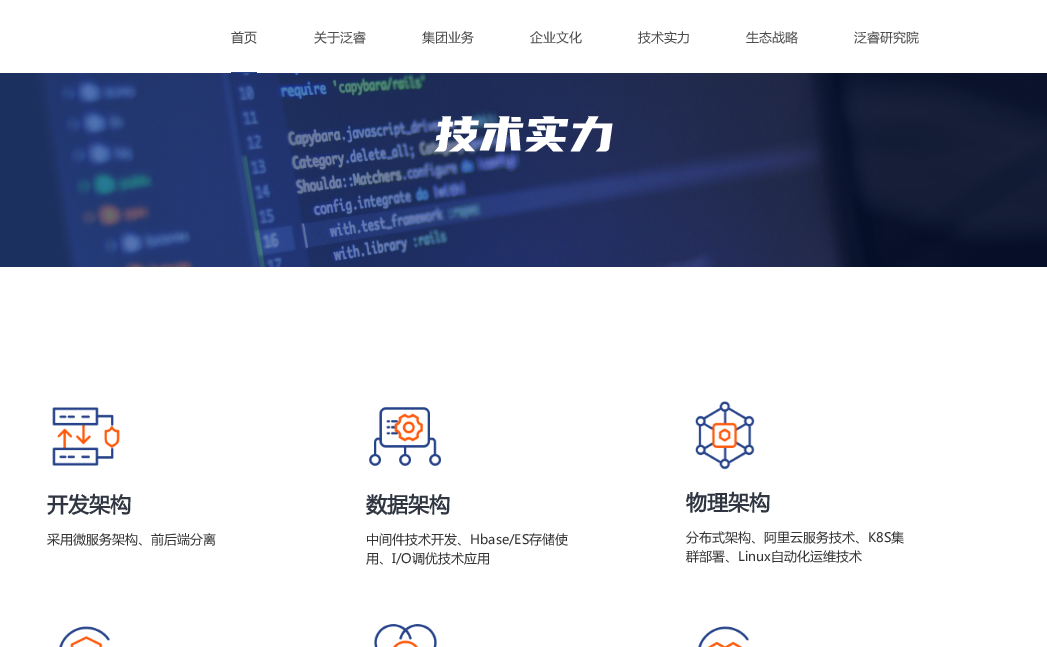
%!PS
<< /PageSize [1047 647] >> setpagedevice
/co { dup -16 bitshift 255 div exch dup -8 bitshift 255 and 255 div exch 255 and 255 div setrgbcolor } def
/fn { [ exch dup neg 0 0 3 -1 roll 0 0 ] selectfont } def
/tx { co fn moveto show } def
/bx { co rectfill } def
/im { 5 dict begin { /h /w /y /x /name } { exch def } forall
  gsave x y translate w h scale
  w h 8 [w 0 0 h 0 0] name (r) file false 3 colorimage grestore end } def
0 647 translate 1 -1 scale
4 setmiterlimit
0 0 1047 647 16#FFFFFF bx
231 72 26 1 16#264389 bx
(media/1.raw) 0 73 1047 194 im
(media/2.raw) 52 407 68 59 im
(media/3.raw) 369 407 72 59 im
(media/4.raw) 695 401 60 69 im
(media/5.raw) 59 626 52 21 im
(media/6.raw) 374 624 63 23 im
(media/7.raw) 698 626 52 21 im
(首页) 231 42 /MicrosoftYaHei-Regular 13 16#4C4C4C tx
(关于泛睿) 314 42 /MicrosoftYaHei-Regular 13 16#4C4C4C tx
(集团业务) 422 42 /MicrosoftYaHei-Regular 13 16#4C4C4C tx
(企业文化) 530 42 /MicrosoftYaHei-Regular 13 16#4C4C4C tx
(技术实力) 638 42 /MicrosoftYaHei-Regular 13 16#4C4C4C tx
(生态战略) 746 42 /MicrosoftYaHei-Regular 13 16#4C4C4C tx
(泛睿研究院) 854 42 /MicrosoftYaHei-Regular 13 16#4C4C4C tx
(技术实力) 434 151 /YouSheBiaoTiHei-Regular 49 16#FFFFFF tx
(开发架构) 47 512 /MicrosoftYaHei-Bold 21 16#303641 tx
(采用微服务架构、前后端分离) 47 544 /MicrosoftYaHei-Regular 13 16#333333 tx
(数据架构) 366 512 /MicrosoftYaHei-Bold 21 16#303641 tx
(中间件技术开发、Hbase/ES存储使) 366 544 /MicrosoftYaHei-Regular 13 16#333333 tx
(用、I/O调优技术应用) 366 563 /MicrosoftYaHei-Regular 13 16#333333 tx
(物理架构) 686 510 /MicrosoftYaHei-Bold 21 16#303641 tx
(分布式架构、阿里云服务技术、K8S集) 686 542 /MicrosoftYaHei-Regular 13 16#333333 tx
(群部署、Linux自动化运维技术) 686 561 /MicrosoftYaHei-Regular 13 16#333333 tx
showpage
